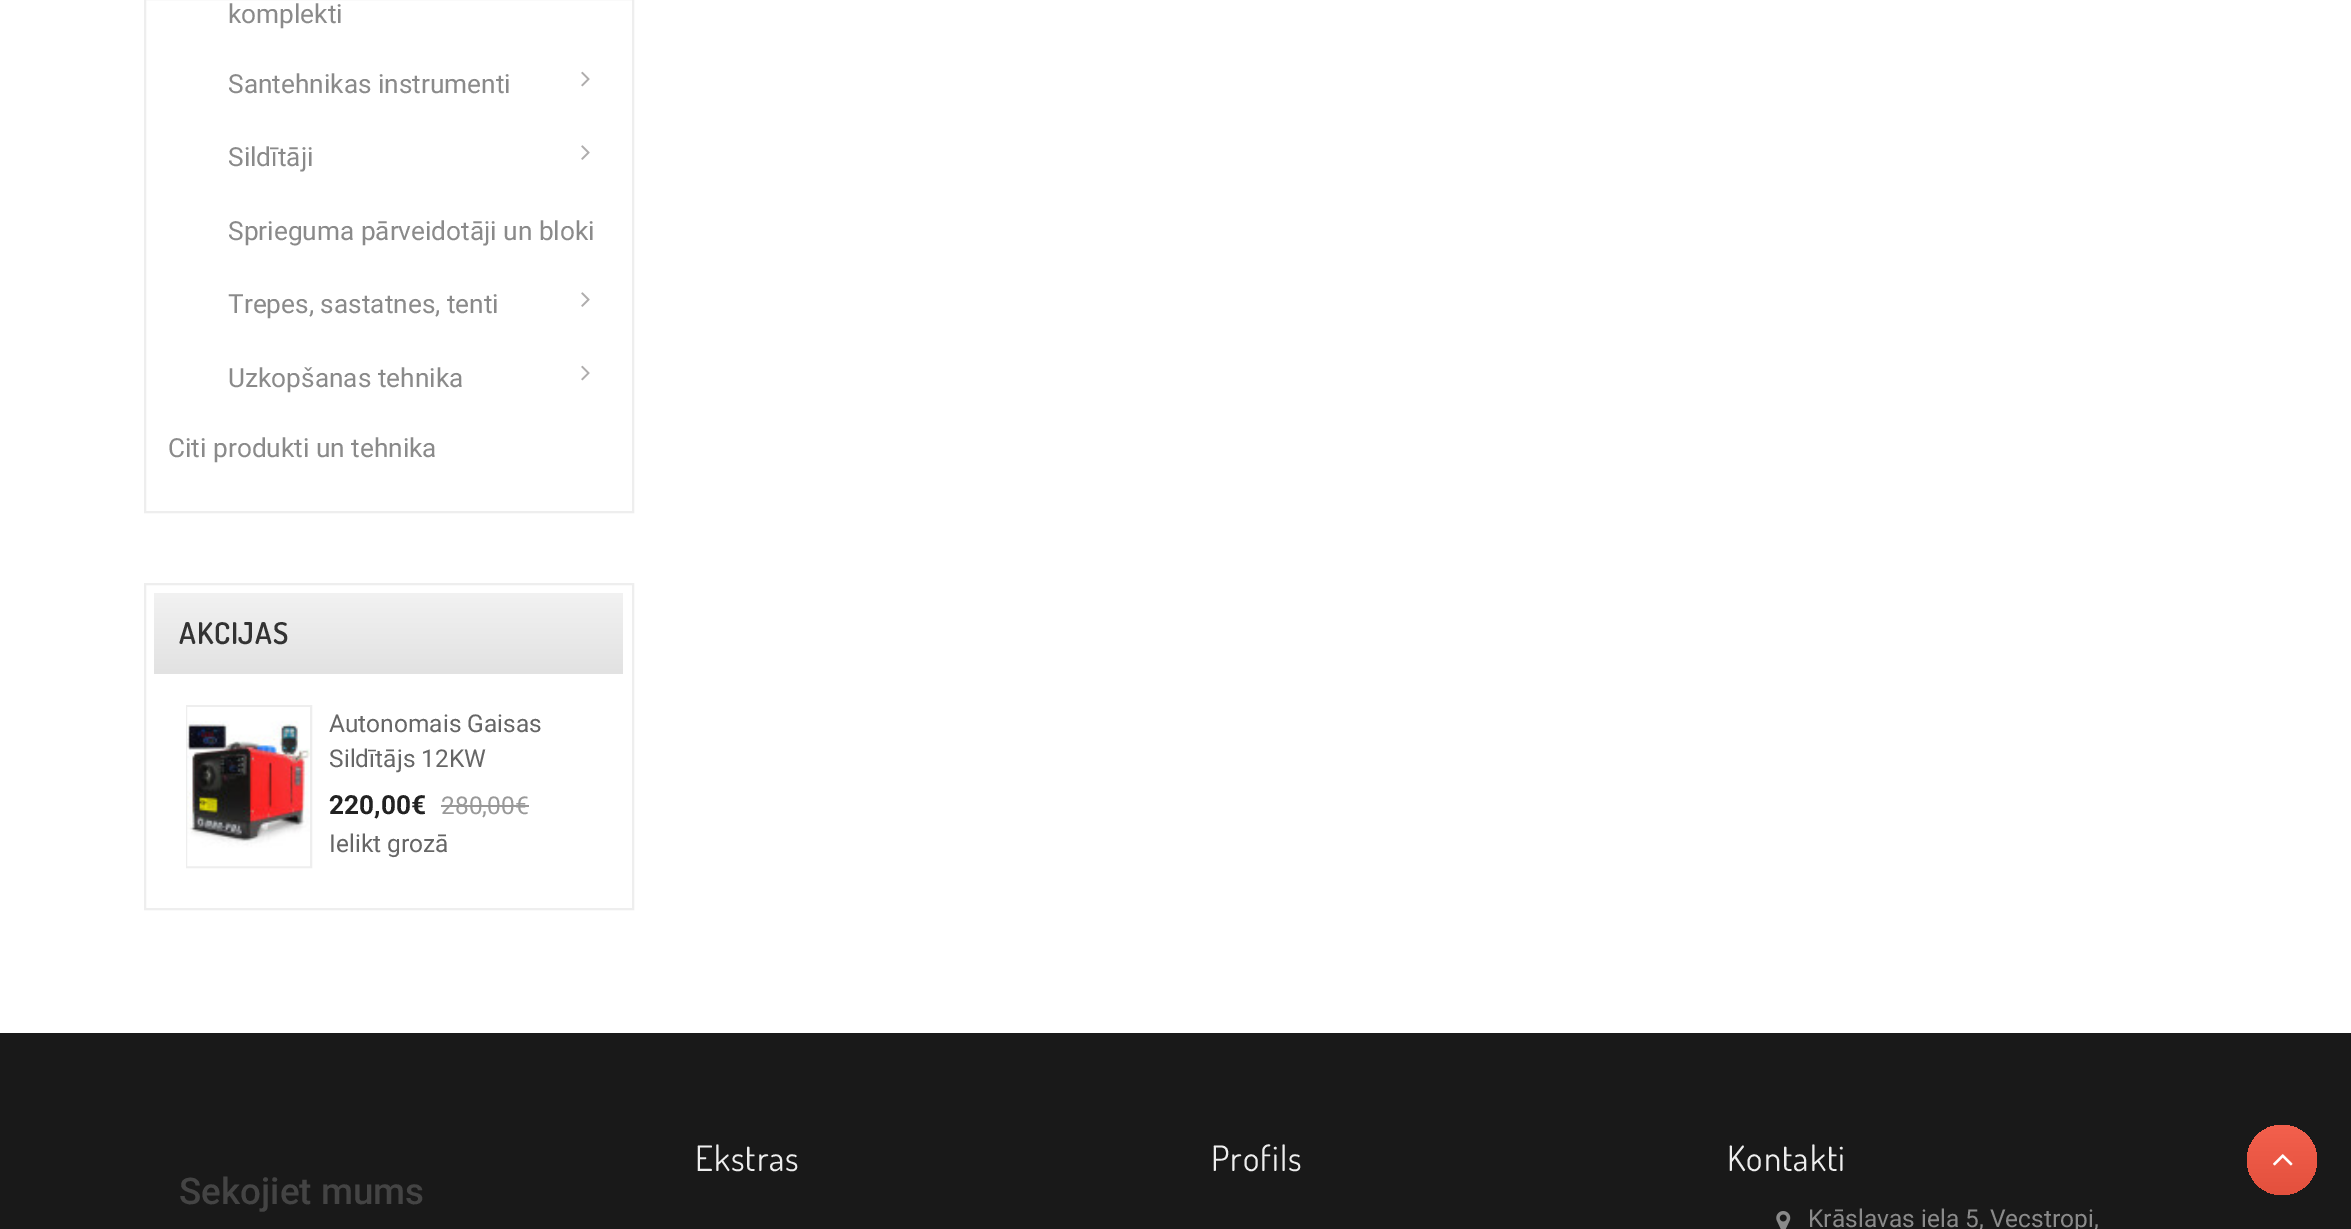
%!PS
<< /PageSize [2351 1229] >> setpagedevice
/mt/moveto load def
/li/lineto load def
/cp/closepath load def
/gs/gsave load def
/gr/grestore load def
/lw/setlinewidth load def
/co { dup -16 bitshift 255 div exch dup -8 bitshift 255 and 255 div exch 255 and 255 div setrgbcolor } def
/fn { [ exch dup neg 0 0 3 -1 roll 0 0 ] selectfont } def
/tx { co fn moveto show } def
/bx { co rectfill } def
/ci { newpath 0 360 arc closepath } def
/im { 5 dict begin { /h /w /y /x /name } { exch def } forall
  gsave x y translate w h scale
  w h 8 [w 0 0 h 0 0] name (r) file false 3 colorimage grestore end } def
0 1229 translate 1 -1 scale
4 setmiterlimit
0 0 2351 1229 16#FFFFFF bx
16#EEEEEE co
2 lw
145 -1 488 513 rectstroke
(media/1.raw) 581 71 9 16 im
(media/2.raw) 581 145 9 15 im
(media/2.raw) 581 292 9 15 im
(media/1.raw) 581 365 9 16 im
145 584 488 325 rectstroke
gs 154 593 mt 623 593 li 623 674 li 154 674 li cp clip newpath
<< /ShadingType 2 /ColorSpace /DeviceRGB /Coords [389 593 389 674] /Extend [true true] /Function << /FunctionType 2 /Domain [0 1] /C0 [.949 .949 .949] /C1 [.886 .886 .886] /N 1 >> >> shfill gr
187 706 124 161 rectstroke
(media/3.raw) 187 707 123 160 im
441 805 88 2 16#999999 bx
0 1033 2351 196 16#191919 bx
(media/4.raw) 1776 1211 15 18 im
gs 2282 1160 35 ci clip newpath
<< /ShadingType 2 /ColorSpace /DeviceRGB /Coords [2282 1125 2282 1195] /Extend [true true] /Function << /FunctionType 2 /Domain [0 1] /C0 [.953 .376 .302] /C1 [.89 .314 .239] /N 1 >> >> shfill gr
(media/5.raw) 2273 1154 20 12 im
(komplekti) 228 23 /Roboto-Regular 26.25 16#8A8A8A tx
(Santehnikas instrumenti) 228 93 /Roboto-Regular 26.25 16#8A8A8A tx
(Sildītāji) 228 166 /Roboto-Regular 26.25 16#8A8A8A tx
(Sprieguma pārveidotāji un bloki) 228 240 /Roboto-Regular 26.25 16#8A8A8A tx
(Trepes, sastatnes, tenti) 228 313 /Roboto-Regular 26.25 16#8A8A8A tx
(Uzkopšanas tehnika) 228 387 /Roboto-Regular 26.25 16#8A8A8A tx
(Citi produkti un tehnika) 168 457 /Roboto-Regular 26.25 16#8A8A8A tx
/Dosis-SemiBold 30 fn
16#333333 co
179 644 mt .75 0 (AKCIJAS) ashow
(Autonomais Gaisas) 329 732 /Roboto-Regular 24.5 16#666666 tx
(Sildītājs 12KW) 329 767 /Roboto-Regular 24.5 16#666666 tx
(220,00€) 329 814 /Roboto-Bold 26.25 16#222222 tx
(280,00€) 441 814 /Roboto-Regular 24.5 16#999999 tx
(Ielikt grozā) 329 852 /Roboto-Regular 24.5 16#666666 tx
(Sekojiet mums) 179 1204 /Roboto-Medium 36.75 16#444444 tx
/Dosis-Regular 35 fn
16#EEEEEE co
695 1171 mt 1 0 (Ekstras) ashow
1211 1171 mt 1 0 (Profils) ashow
1727 1171 mt 1 0 (Kontakti) ashow
(Krāslavas iela 5, Vecstropi,) 1808 1227 /Roboto-Regular 24.5 16#8A8A8A tx
showpage
